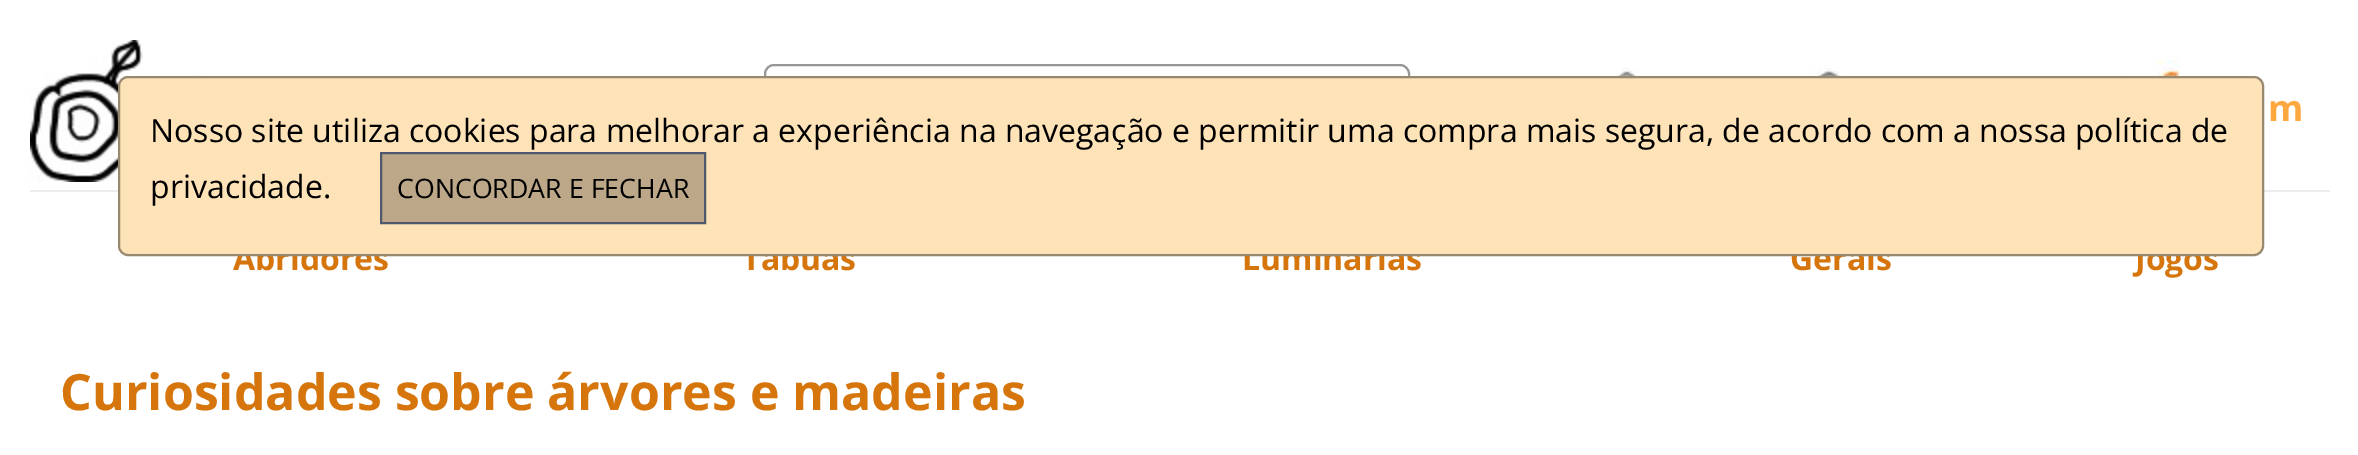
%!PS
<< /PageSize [2358 455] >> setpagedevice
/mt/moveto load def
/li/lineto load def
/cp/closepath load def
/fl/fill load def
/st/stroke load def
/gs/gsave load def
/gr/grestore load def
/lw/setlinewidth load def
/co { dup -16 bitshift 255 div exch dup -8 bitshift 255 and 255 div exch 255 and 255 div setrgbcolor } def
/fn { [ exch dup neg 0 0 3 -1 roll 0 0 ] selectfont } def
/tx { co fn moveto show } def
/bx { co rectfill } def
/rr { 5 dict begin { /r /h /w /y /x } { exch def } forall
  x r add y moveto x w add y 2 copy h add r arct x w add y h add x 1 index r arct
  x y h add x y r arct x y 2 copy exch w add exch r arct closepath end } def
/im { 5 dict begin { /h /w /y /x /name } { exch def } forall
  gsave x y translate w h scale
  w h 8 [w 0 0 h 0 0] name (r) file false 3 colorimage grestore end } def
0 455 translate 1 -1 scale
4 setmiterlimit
0 0 2358 455 16#FFFFFF bx
(media/1.raw) 30 40 656 142 im
16#969696 co
2 lw
765 65 644 62 9 rr st
(media/2.raw) 1605 68 47 8 im
(media/3.raw) 1808 68 41 8 im
(media/4.raw) 2094 60 86 16 im
30 190 2300 2 16#EDECED bx
(m) 2268 121 /OpenSans-Bold 36 16#FFA83F tx
(Abridores) 233 270 /OpenSans-Bold 32 16#D5750B tx
(Tábuas) 742 270 /OpenSans-Bold 32 16#D5750B tx
(Luminárias) 1242 270 /OpenSans-Bold 32 16#D5750B tx
(Gerais) 1790 270 /OpenSans-Bold 32 16#D5750B tx
(Jogos) 2135 270 /OpenSans-Bold 32 16#D5750B tx
16#FEE3B9 co
119 77 2144 178 9 rr gs fl gr
16#98886F co
st
(Nosso site utiliza cookies para melhorar a experiência na navegação e permitir uma compra mais segura, de acordo com a nossa política de) 150 142 /OpenSans-Regular 32 16#000000 tx
(privacidade.) 150 198 /OpenSans-Regular 32 16#000000 tx
16#BCA889 co
381 153 mt 705 153 li 705 223 li 381 223 li cp gs fl gr
16#50596B co
st
(CONCORDAR E FECHAR) 397 198 /OpenSans-Regular 26.75 16#000000 tx
(Curiosidades sobre árvores e madeiras) 60 410 /OpenSans-Bold 50 16#D5750B tx
showpage
